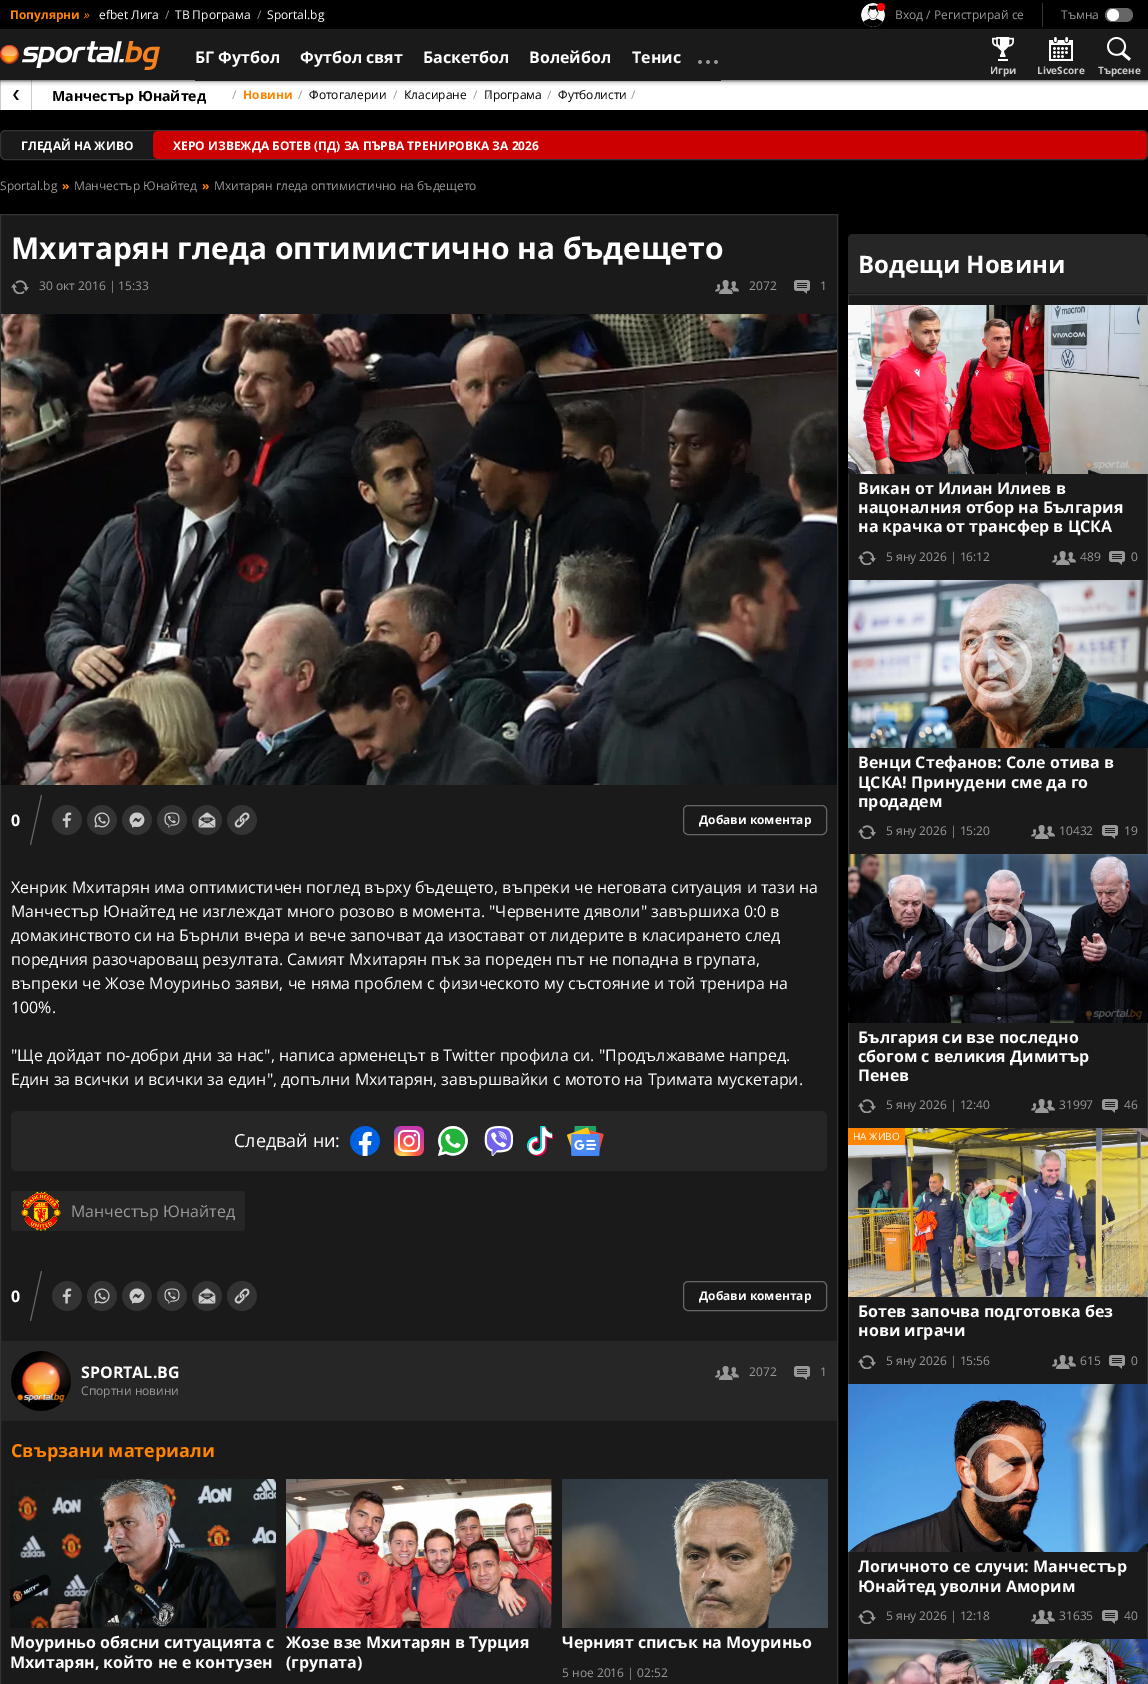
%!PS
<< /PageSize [1148 1684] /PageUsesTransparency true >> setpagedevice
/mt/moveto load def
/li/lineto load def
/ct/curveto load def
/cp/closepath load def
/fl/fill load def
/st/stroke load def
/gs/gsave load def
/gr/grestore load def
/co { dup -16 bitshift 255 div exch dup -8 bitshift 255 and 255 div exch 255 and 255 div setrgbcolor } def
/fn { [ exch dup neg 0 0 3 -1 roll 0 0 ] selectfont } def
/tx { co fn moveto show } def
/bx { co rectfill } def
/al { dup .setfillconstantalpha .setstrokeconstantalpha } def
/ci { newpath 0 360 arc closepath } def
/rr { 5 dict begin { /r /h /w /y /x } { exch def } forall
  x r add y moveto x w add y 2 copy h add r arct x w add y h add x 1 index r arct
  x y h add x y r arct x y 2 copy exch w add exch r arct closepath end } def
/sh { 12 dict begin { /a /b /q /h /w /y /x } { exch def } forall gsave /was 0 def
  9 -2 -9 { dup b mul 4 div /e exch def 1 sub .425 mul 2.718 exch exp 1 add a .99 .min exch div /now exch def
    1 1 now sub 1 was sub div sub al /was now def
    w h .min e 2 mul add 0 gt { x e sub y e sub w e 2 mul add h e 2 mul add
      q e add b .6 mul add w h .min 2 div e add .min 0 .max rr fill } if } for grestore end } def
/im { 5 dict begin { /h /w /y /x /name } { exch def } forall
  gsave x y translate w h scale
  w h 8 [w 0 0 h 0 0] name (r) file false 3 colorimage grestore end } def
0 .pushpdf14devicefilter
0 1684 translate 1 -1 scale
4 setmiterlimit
0 0 1148 1684 16#000000 bx
0 29 1148 1 16#333333 bx
(media/1.raw) 861 3 24 24 im
16#FF0000 co
881 7 4 ci fl
1042 3 1 24 16#333333 bx
16#666666 co
1105 8 28 14 7 rr fl
16#FFFFFF co
1113 15 6 ci fl
1 80 1147 30 16#FFFFFF bx
31 80 1 30 16#CCCCCC bx
0 80 1 30 16#CCCCCC bx
16#000000 co
0 30 1148 50 0 2.5 .99 sh
0 30 1148 50 16#1A1A1A bx
(media/2.raw) 0 41 160 29 im
195 80 526 1 16#1A1A1A bx
(media/3.raw) 698 60 20 4 im
(media/4.raw) 992 37 22 24 im
(media/5.raw) 1049 37 24 24 im
(media/6.raw) 1107 37 24 24 im
(media/7.raw) 13 90 6 10 im
.5 130.5 1147 29 4.5 rr gs fl gr
16#333333 co
st
16#CC0000 co
153 131 994 28 5 rr fl
16#1A1A1A co
.5 214.5 mt 837.5 214.5 li 837.5 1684.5 li .5 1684.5 li cp gs fl gr
16#333333 co
st
(media/8.raw) 11 280 18 14 im
(media/9.raw) 715 280 24 14 im
(media/10.raw) 794 280 16 14 im
(media/11.raw) 1 314 836 471 im
16#666666 co
42 795 mt 31 845 li 30 845 li 41 795 li cp eofill
(media/12.raw) 52 805 30 30 im
(media/13.raw) 87 805 30 30 im
(media/14.raw) 122 805 30 30 im
(media/15.raw) 157 805 30 30 im
(media/16.raw) 192 805 30 30 im
(media/17.raw) 227 805 30 30 im
683.5 805.5 143 29 4.5 rr st
16#262626 co
11 1111 816 60 6 rr fl
(media/18.raw) 350 1126 30 30 im
(media/19.raw) 394 1126 30 30 im
(media/20.raw) 438 1126 30 30 im
(media/21.raw) 484 1126 29 30 im
(media/22.raw) 527 1126 26 30 im
(media/23.raw) 567 1126 37 30 im
11 1191 234 40 4 rr fl
(media/24.raw) 21 1191 40 40 im
16#666666 co
42 1271 mt 31 1321 li 30 1321 li 41 1271 li cp eofill
(media/12.raw) 52 1281 30 30 im
(media/13.raw) 87 1281 30 30 im
(media/14.raw) 122 1281 30 30 im
(media/15.raw) 157 1281 30 30 im
(media/16.raw) 192 1281 30 30 im
(media/17.raw) 227 1281 30 30 im
683.5 1281.5 143 29 4.5 rr st
1 1341 836 80 16#262626 bx
(media/25.raw) 11 1351 60 60 im
(media/26.raw) 715 1366 24 14 im
(media/27.raw) 794 1366 16 14 im
(media/28.raw) 10 1479 266 149 im
(media/29.raw) 286 1479 266 149 im
(media/30.raw) 562 1479 266 149 im
853 234 mt 1143 234 li 1146 234 1148 236 1148 239 ct 1148 294 li 848 294 li 848 239 li 848 236 850 234 853 234 ct cp fl
848 293 300 1 16#1A1A1A bx
849 295 298 1344 16#1A1A1A bx
16#333333 co
848.5 294.5 299 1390 rectstroke
(media/31.raw) 848 305 300 169 im
(media/8.raw) 858 551 18 14 im
(media/9.raw) 1052 551 24 14 im
(media/10.raw) 1109 551 16 14 im
(media/32.raw) 848 580 300 168 im
(media/33.raw) 964 630 68 68 im
(media/8.raw) 858 825 18 14 im
(media/9.raw) 1031 825 24 14 im
(media/10.raw) 1102 825 16 14 im
(media/34.raw) 848 854 300 169 im
(media/35.raw) 964 904 68 68 im
(media/8.raw) 858 1099 18 14 im
(media/9.raw) 1031 1099 24 14 im
(media/10.raw) 1102 1099 16 14 im
(media/36.raw) 848 1128 300 169 im
848 1128 57 17 16#FF8400 bx
(media/37.raw) 964 1179 68 68 im
(media/8.raw) 858 1355 18 14 im
(media/9.raw) 1052 1355 24 14 im
(media/10.raw) 1109 1355 16 14 im
(media/38.raw) 848 1384 300 168 im
(media/39.raw) 964 1434 68 68 im
(media/8.raw) 858 1610 18 14 im
(media/9.raw) 1031 1610 24 14 im
(media/10.raw) 1102 1610 16 14 im
(media/40.raw) 848 1639 300 45 im
(Популярни) 10 19 /OpenSans-Bold 12 16#FF8400 tx
(») 83 19 /OpenSans-Italic 12 16#FF8400 tx
(efbet Лига) 99 19 /OpenSans-Regular 12 16#FFFFFF tx
(/) 165 19 /OpenSans-Regular 12 16#999999 tx
(ТВ Програма) 175 19 /OpenSans-Regular 12 16#FFFFFF tx
(/) 257 19 /OpenSans-Regular 12 16#999999 tx
(Sportal.bg) 267 19 /OpenSans-Regular 12 16#FFFFFF tx
(Вход / Регистрирай се) 895 19 /OpenSans-Regular 12 16#999999 tx
(Тъмна) 1061 19 /OpenSans-Regular 12 16#999999 tx
(БГ Футбол) 195 63 /OpenSans-Bold 16 16#FFFFFF tx
(Футбол свят) 300 63 /OpenSans-Bold 16 16#FFFFFF tx
(Баскетбол) 423 63 /OpenSans-Bold 16 16#FFFFFF tx
(Волейбол) 529 63 /OpenSans-Bold 16 16#FFFFFF tx
(Тенис) 632 63 /OpenSans-Bold 16 16#FFFFFF tx
(Игри) 990 74 /OpenSans-Bold 10 16#CCCCCC tx
(LiveScore) 1037 74 /OpenSans-Bold 10 16#CCCCCC tx
(Търсене) 1098 74 /OpenSans-Bold 10 16#CCCCCC tx
(Манчестър Юнайтед) 52 101 /OpenSans-Bold 14 16#000000 tx
(/) 232 99 /OpenSans-Regular 12 16#999999 tx
(Новини) 243 99 /OpenSans-Bold 12 16#FF8400 tx
(/) 312 99 /OpenSans-Bold 12 16#999999 tx
(/) 298 99 /OpenSans-Regular 12 16#999999 tx
(Фотогалерии) 309 99 /OpenSans-Regular 12 16#000000 tx
(/) 407 99 /OpenSans-Regular 12 16#999999 tx
(/) 393 99 /OpenSans-Regular 12 16#999999 tx
(Класиране) 404 99 /OpenSans-Regular 12 16#000000 tx
(/) 487 99 /OpenSans-Regular 12 16#999999 tx
(/) 473 99 /OpenSans-Regular 12 16#999999 tx
(Програма) 484 99 /OpenSans-Regular 12 16#000000 tx
(/) 561 99 /OpenSans-Regular 12 16#999999 tx
(/) 547 99 /OpenSans-Regular 12 16#999999 tx
(Футболисти) 558 99 /OpenSans-Regular 12 16#000000 tx
(/) 631 99 /OpenSans-Regular 12 16#999999 tx
(ГЛЕДАЙ НА ЖИВО) 21 150 /OpenSans-Bold 12 16#FFFFFF tx
(ХЕРО ИЗВЕЖДА БОТЕВ \(ПД\) ЗА ПЪРВА ТРЕНИРОВКА ЗА 2026) 173 150 /OpenSans-Bold 12 16#FFFFFF tx
(Sportal.bg) 0 190 /OpenSans-Regular 12 16#999999 tx
(») 62 190 /OpenSans-Bold 12 16#FF8400 tx
(Манчестър Юнайтед) 74 190 /OpenSans-Regular 12 16#999999 tx
(») 202 190 /OpenSans-Bold 12 16#FF8400 tx
(Мхитарян гледа оптимистично на бъдещето) 214 190 /OpenSans-Regular 12 16#999999 tx
(Мхитарян гледа оптимистично на бъдещето) 11 259 /OpenSans-Bold 30 16#FFFFFF tx
(30 окт 2016 | 15:33) 39 290 /OpenSans-Regular 12 16#999999 tx
(2072) 749 290 /OpenSans-Regular 12 16#999999 tx
(1) 820 290 /OpenSans-Regular 12 16#999999 tx
(0) 11 826 /OpenSans-Bold 16 16#FFFFFF tx
(Добави коментар) 699 824 /OpenSans-Bold 12 16#FFFFFF tx
(Хенрик Мхитарян има оптимистичен поглед върху бъдещето, въпреки че неговата ситуация и тази на) 11 893 /OpenSans-Regular 16 16#FFFFFF tx
(Манчестър Юнайтед не изглеждат много розово в момента. "Червените дяволи" завършиха 0:0 в) 11 917 /OpenSans-Regular 16 16#FFFFFF tx
(домакинството си на Бърнли вчера и вече започват да изостават от лидерите в класирането след) 11 941 /OpenSans-Regular 16 16#FFFFFF tx
(поредния разочароващ резултата. Самият Мхитарян пък за пореден път не попадна в групата,) 11 965 /OpenSans-Regular 16 16#FFFFFF tx
(въпреки че Жозе Моуриньо заяви, че няма проблем с физическото му състояние и той тренира на) 11 989 /OpenSans-Regular 16 16#FFFFFF tx
(100%.) 11 1013 /OpenSans-Regular 16 16#FFFFFF tx
("Ще дойдат по-добри дни за нас", написа арменецът в Twitter профила си. "Продължаваме напред.) 11 1061 /OpenSans-Regular 16 16#FFFFFF tx
(Един за всички и всички за един", допълни Мхитарян, завършвайки с мотото на Тримата мускетари.) 11 1085 /OpenSans-Regular 16 16#FFFFFF tx
(Следвай ни:) 234 1147 /OpenSans-Regular 18 16#FFFFFF tx
(Манчестър Юнайтед) 71 1217 /OpenSans-Regular 16 16#999999 tx
(0) 11 1302 /OpenSans-Bold 16 16#FFFFFF tx
(Добави коментар) 699 1300 /OpenSans-Bold 12 16#FFFFFF tx
(SPORTAL.BG) 81 1378 /OpenSans-Bold 16 16#FFFFFF tx
(Спортни новини) 81 1395 /OpenSans-Regular 12 16#999999 tx
(2072) 749 1376 /OpenSans-Regular 12 16#999999 tx
(1) 820 1376 /OpenSans-Regular 12 16#999999 tx
(Свързани материали) 11 1457 /OpenSans-Bold 18 16#FF8400 tx
(Моуриньо обясни ситуацията с) 10 1648 /OpenSans-Bold 16 16#FFFFFF tx
(Мхитарян, който не е контузен) 10 1668 /OpenSans-Bold 16 16#FFFFFF tx
(Жозе взе Мхитарян в Турция) 286 1648 /OpenSans-Bold 16 16#FFFFFF tx
(\(групата\)) 286 1668 /OpenSans-Bold 16 16#FFFFFF tx
(Черният списък на Моуриньо) 562 1648 /OpenSans-Bold 16 16#FFFFFF tx
(5 ное 2016 | 02:52) 562 1677 /OpenSans-Regular 12 16#999999 tx
(Водещи Новини) 858 273 /OpenSans-Bold 24 16#FFFFFF tx
(Викан от Илиан Илиев в) 858 494 /OpenSans-Bold 16 16#FFFFFF tx
(нацоналния отбор на България) 858 513 /OpenSans-Bold 16 16#FFFFFF tx
(на крачка от трансфер в ЦСКА) 858 532 /OpenSans-Bold 16 16#FFFFFF tx
(5 яну 2026 | 16:12) 886 561 /OpenSans-Regular 12 16#999999 tx
(489) 1080 561 /OpenSans-Regular 12 16#999999 tx
(0) 1131 561 /OpenSans-Regular 12 16#999999 tx
(Венци Стефанов: Соле отива в) 858 768 /OpenSans-Bold 16 16#FFFFFF tx
(ЦСКА! Принудени сме да го) 858 788 /OpenSans-Bold 16 16#FFFFFF tx
(продадем) 858 807 /OpenSans-Bold 16 16#FFFFFF tx
(5 яну 2026 | 15:20) 886 835 /OpenSans-Regular 12 16#999999 tx
(10432) 1059 835 /OpenSans-Regular 12 16#999999 tx
(19) 1124 835 /OpenSans-Regular 12 16#999999 tx
(България си взе последно) 858 1043 /OpenSans-Bold 16 16#FFFFFF tx
(сбогом с великия Димитър) 858 1062 /OpenSans-Bold 16 16#FFFFFF tx
(Пенев) 858 1081 /OpenSans-Bold 16 16#FFFFFF tx
(5 яну 2026 | 12:40) 886 1109 /OpenSans-Regular 12 16#999999 tx
(31997) 1059 1109 /OpenSans-Regular 12 16#999999 tx
(46) 1124 1109 /OpenSans-Regular 12 16#999999 tx
(НА ЖИВО) 853 1140 /OpenSans-Regular 10 16#FFFFFF tx
(Ботев започва подготовка без) 858 1317 /OpenSans-Bold 16 16#FFFFFF tx
(нови играчи) 858 1336 /OpenSans-Bold 16 16#FFFFFF tx
(5 яну 2026 | 15:56) 886 1365 /OpenSans-Regular 12 16#999999 tx
(615) 1080 1365 /OpenSans-Regular 12 16#999999 tx
(0) 1131 1365 /OpenSans-Regular 12 16#999999 tx
(Логичното се случи: Манчестър) 858 1572 /OpenSans-Bold 16 16#FFFFFF tx
(Юнайтед уволни Аморим) 858 1592 /OpenSans-Bold 16 16#FFFFFF tx
(5 яну 2026 | 12:18) 886 1620 /OpenSans-Regular 12 16#999999 tx
(31635) 1059 1620 /OpenSans-Regular 12 16#999999 tx
(40) 1124 1620 /OpenSans-Regular 12 16#999999 tx
.poppdf14devicefilter showpage
